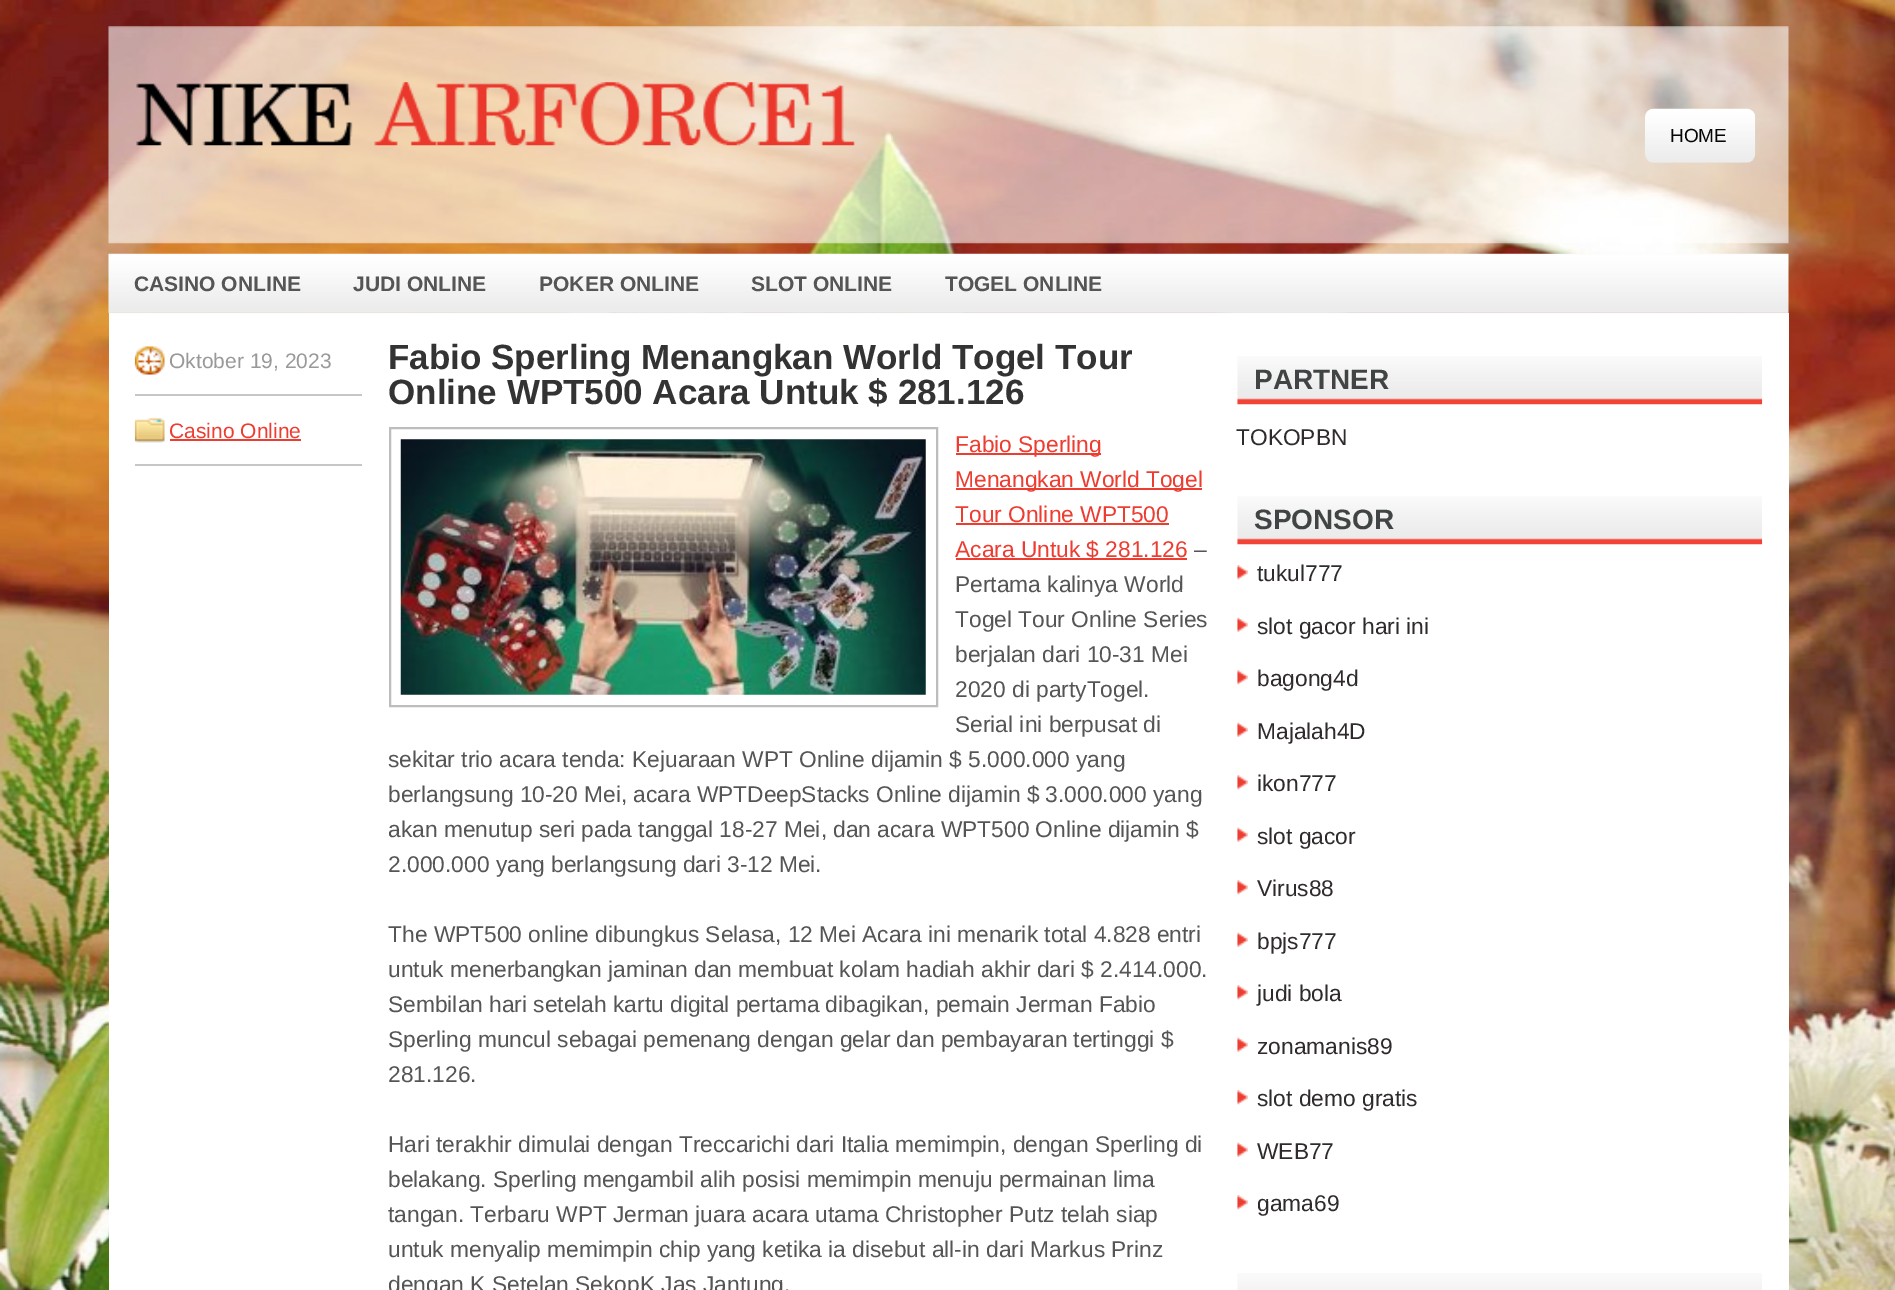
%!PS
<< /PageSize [1895 1290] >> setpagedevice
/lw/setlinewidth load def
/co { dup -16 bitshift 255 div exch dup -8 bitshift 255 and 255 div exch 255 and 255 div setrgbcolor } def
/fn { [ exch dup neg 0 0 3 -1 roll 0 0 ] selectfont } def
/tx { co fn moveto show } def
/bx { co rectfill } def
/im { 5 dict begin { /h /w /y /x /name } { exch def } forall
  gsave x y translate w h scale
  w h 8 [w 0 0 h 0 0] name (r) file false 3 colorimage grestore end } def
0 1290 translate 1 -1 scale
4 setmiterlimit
0 0 1895 1290 16#FFFFFF bx
(media/1.raw) 0 0 1895 1290 im
(media/2.raw) 108 26 1681 218 im
(media/3.raw) 136 82 719 64 im
(media/4.raw) 1645 108 111 55 im
109 313 1680 977 16#FFFFFF bx
(media/5.raw) 108 253 1681 61 im
(media/6.raw) 134 346 31 29 im
135 394 227 2 16#C6C6C6 bx
(media/7.raw) 134 417 31 26 im
135 464 227 2 16#C6C6C6 bx
170 439 131 2 16#ED3C30 bx
16#BDBDBD co
2 lw
390 428 547 278 rectstroke
(media/8.raw) 400 439 526 256 im
956 453 145 2 16#ED3C30 bx
956 488 246 2 16#ED3C30 bx
956 523 213 2 16#ED3C30 bx
956 558 231 2 16#ED3C30 bx
(media/9.raw) 1237 356 526 49 im
(media/9.raw) 1237 496 526 49 im
(media/10.raw) 1237 565 11 15 im
(media/11.raw) 1237 617 11 15 im
(media/10.raw) 1237 670 11 15 im
(media/11.raw) 1237 722 11 15 im
(media/10.raw) 1237 775 11 15 im
(media/11.raw) 1237 827 11 15 im
(media/10.raw) 1237 880 11 15 im
(media/11.raw) 1237 932 11 15 im
(media/10.raw) 1237 985 11 15 im
(media/11.raw) 1237 1037 11 15 im
(media/10.raw) 1237 1090 11 15 im
(media/11.raw) 1237 1142 11 15 im
(media/10.raw) 1237 1195 11 15 im
(media/12.raw) 1237 1273 525 17 im
(HOME) 1670 142 /LiberationSans-Regular 19 16#050607 tx
(CASINO ONLINE) 134 291 /LiberationSans-Bold 21 16#555555 tx
(JUDI ONLINE) 353 291 /LiberationSans-Bold 21 16#555555 tx
(POKER ONLINE) 539 291 /LiberationSans-Bold 21 16#555555 tx
(SLOT ONLINE) 751 291 /LiberationSans-Bold 21 16#555555 tx
(TOGEL ONLINE) 945 291 /LiberationSans-Bold 21 16#555555 tx
(Oktober 19, 2023) 169 368 /LiberationSans-Regular 21 16#999999 tx
(Casino Online) 169 438 /LiberationSans-Regular 21 16#ED3C30 tx
(Fabio Sperling Menangkan World Togel Tour) 388 369 /LiberationSans-Bold 35 16#333333 tx
(Online WPT500 Acara Untuk $ 281.126) 388 404 /LiberationSans-Bold 35 16#333333 tx
(Fabio Sperling) 955 452 /LiberationSans-Regular 22.75 16#ED3C30 tx
(Menangkan World Togel) 955 487 /LiberationSans-Regular 22.75 16#ED3C30 tx
(Tour Online WPT500) 955 522 /LiberationSans-Regular 22.75 16#ED3C30 tx
(Acara Untuk $ 281.126) 955 557 /LiberationSans-Regular 22.75 16#ED3C30 tx
(–) 1194 557 /LiberationSans-Regular 22.75 16#555555 tx
(Pertama kalinya World) 955 592 /LiberationSans-Regular 22.75 16#555555 tx
(Togel Tour Online Series) 955 627 /LiberationSans-Regular 22.75 16#555555 tx
(berjalan dari 10-31 Mei) 955 662 /LiberationSans-Regular 22.75 16#555555 tx
(2020 di partyTogel.) 955 697 /LiberationSans-Regular 22.75 16#555555 tx
(Serial ini berpusat di) 955 732 /LiberationSans-Regular 22.75 16#555555 tx
(sekitar trio acara tenda: Kejuaraan WPT Online dijamin $ 5.000.000 yang) 388 767 /LiberationSans-Regular 22.75 16#555555 tx
(berlangsung 10-20 Mei, acara WPTDeepStacks Online dijamin $ 3.000.000 yang) 388 802 /LiberationSans-Regular 22.75 16#555555 tx
(akan menutup seri pada tanggal 18-27 Mei, dan acara WPT500 Online dijamin $) 388 837 /LiberationSans-Regular 22.75 16#555555 tx
(2.000.000 yang berlangsung dari 3-12 Mei.) 388 872 /LiberationSans-Regular 22.75 16#555555 tx
(The WPT500 online dibungkus Selasa, 12 Mei Acara ini menarik total 4.828 entri) 388 942 /LiberationSans-Regular 22.75 16#555555 tx
(untuk menerbangkan jaminan dan membuat kolam hadiah akhir dari $ 2.414.000.) 388 977 /LiberationSans-Regular 22.75 16#555555 tx
(Sembilan hari setelah kartu digital pertama dibagikan, pemain Jerman Fabio) 388 1012 /LiberationSans-Regular 22.75 16#555555 tx
(Sperling muncul sebagai pemenang dengan gelar dan pembayaran tertinggi $) 388 1047 /LiberationSans-Regular 22.75 16#555555 tx
(281.126.) 388 1082 /LiberationSans-Regular 22.75 16#555555 tx
(Hari terakhir dimulai dengan Treccarichi dari Italia memimpin, dengan Sperling di) 388 1152 /LiberationSans-Regular 22.75 16#555555 tx
(belakang. Sperling mengambil alih posisi memimpin menuju permainan lima) 388 1187 /LiberationSans-Regular 22.75 16#555555 tx
(tangan. Terbaru WPT Jerman juara acara utama Christopher Putz telah siap) 388 1222 /LiberationSans-Regular 22.75 16#555555 tx
(untuk menyalip memimpin chip yang ketika ia disebut all-in dari Markus Prinz) 388 1257 /LiberationSans-Regular 22.75 16#555555 tx
(dengan K Setelan SekopK Jas Jantung.) 388 1292 /LiberationSans-Regular 22.75 16#555555 tx
(PARTNER) 1254 389 /LiberationSans-Bold 28 16#414445 tx
(TOKOPBN) 1236 445 /LiberationSans-Regular 22.75 16#302B2B tx
(SPONSOR) 1254 529 /LiberationSans-Bold 28 16#414445 tx
(tukul777) 1257 581 /LiberationSans-Regular 22.75 16#302B2B tx
(slot gacor hari ini) 1257 634 /LiberationSans-Regular 22.75 16#302B2B tx
(bagong4d) 1257 686 /LiberationSans-Regular 22.75 16#302B2B tx
(Majalah4D) 1257 739 /LiberationSans-Regular 22.75 16#302B2B tx
(ikon777) 1257 791 /LiberationSans-Regular 22.75 16#302B2B tx
(slot gacor) 1257 844 /LiberationSans-Regular 22.75 16#302B2B tx
(Virus88) 1257 896 /LiberationSans-Regular 22.75 16#302B2B tx
(bpjs777) 1257 949 /LiberationSans-Regular 22.75 16#302B2B tx
(judi bola) 1257 1001 /LiberationSans-Regular 22.75 16#302B2B tx
(zonamanis89) 1257 1054 /LiberationSans-Regular 22.75 16#302B2B tx
(slot demo gratis) 1257 1106 /LiberationSans-Regular 22.75 16#302B2B tx
(WEB77) 1257 1159 /LiberationSans-Regular 22.75 16#302B2B tx
(gama69) 1257 1211 /LiberationSans-Regular 22.75 16#302B2B tx
showpage
